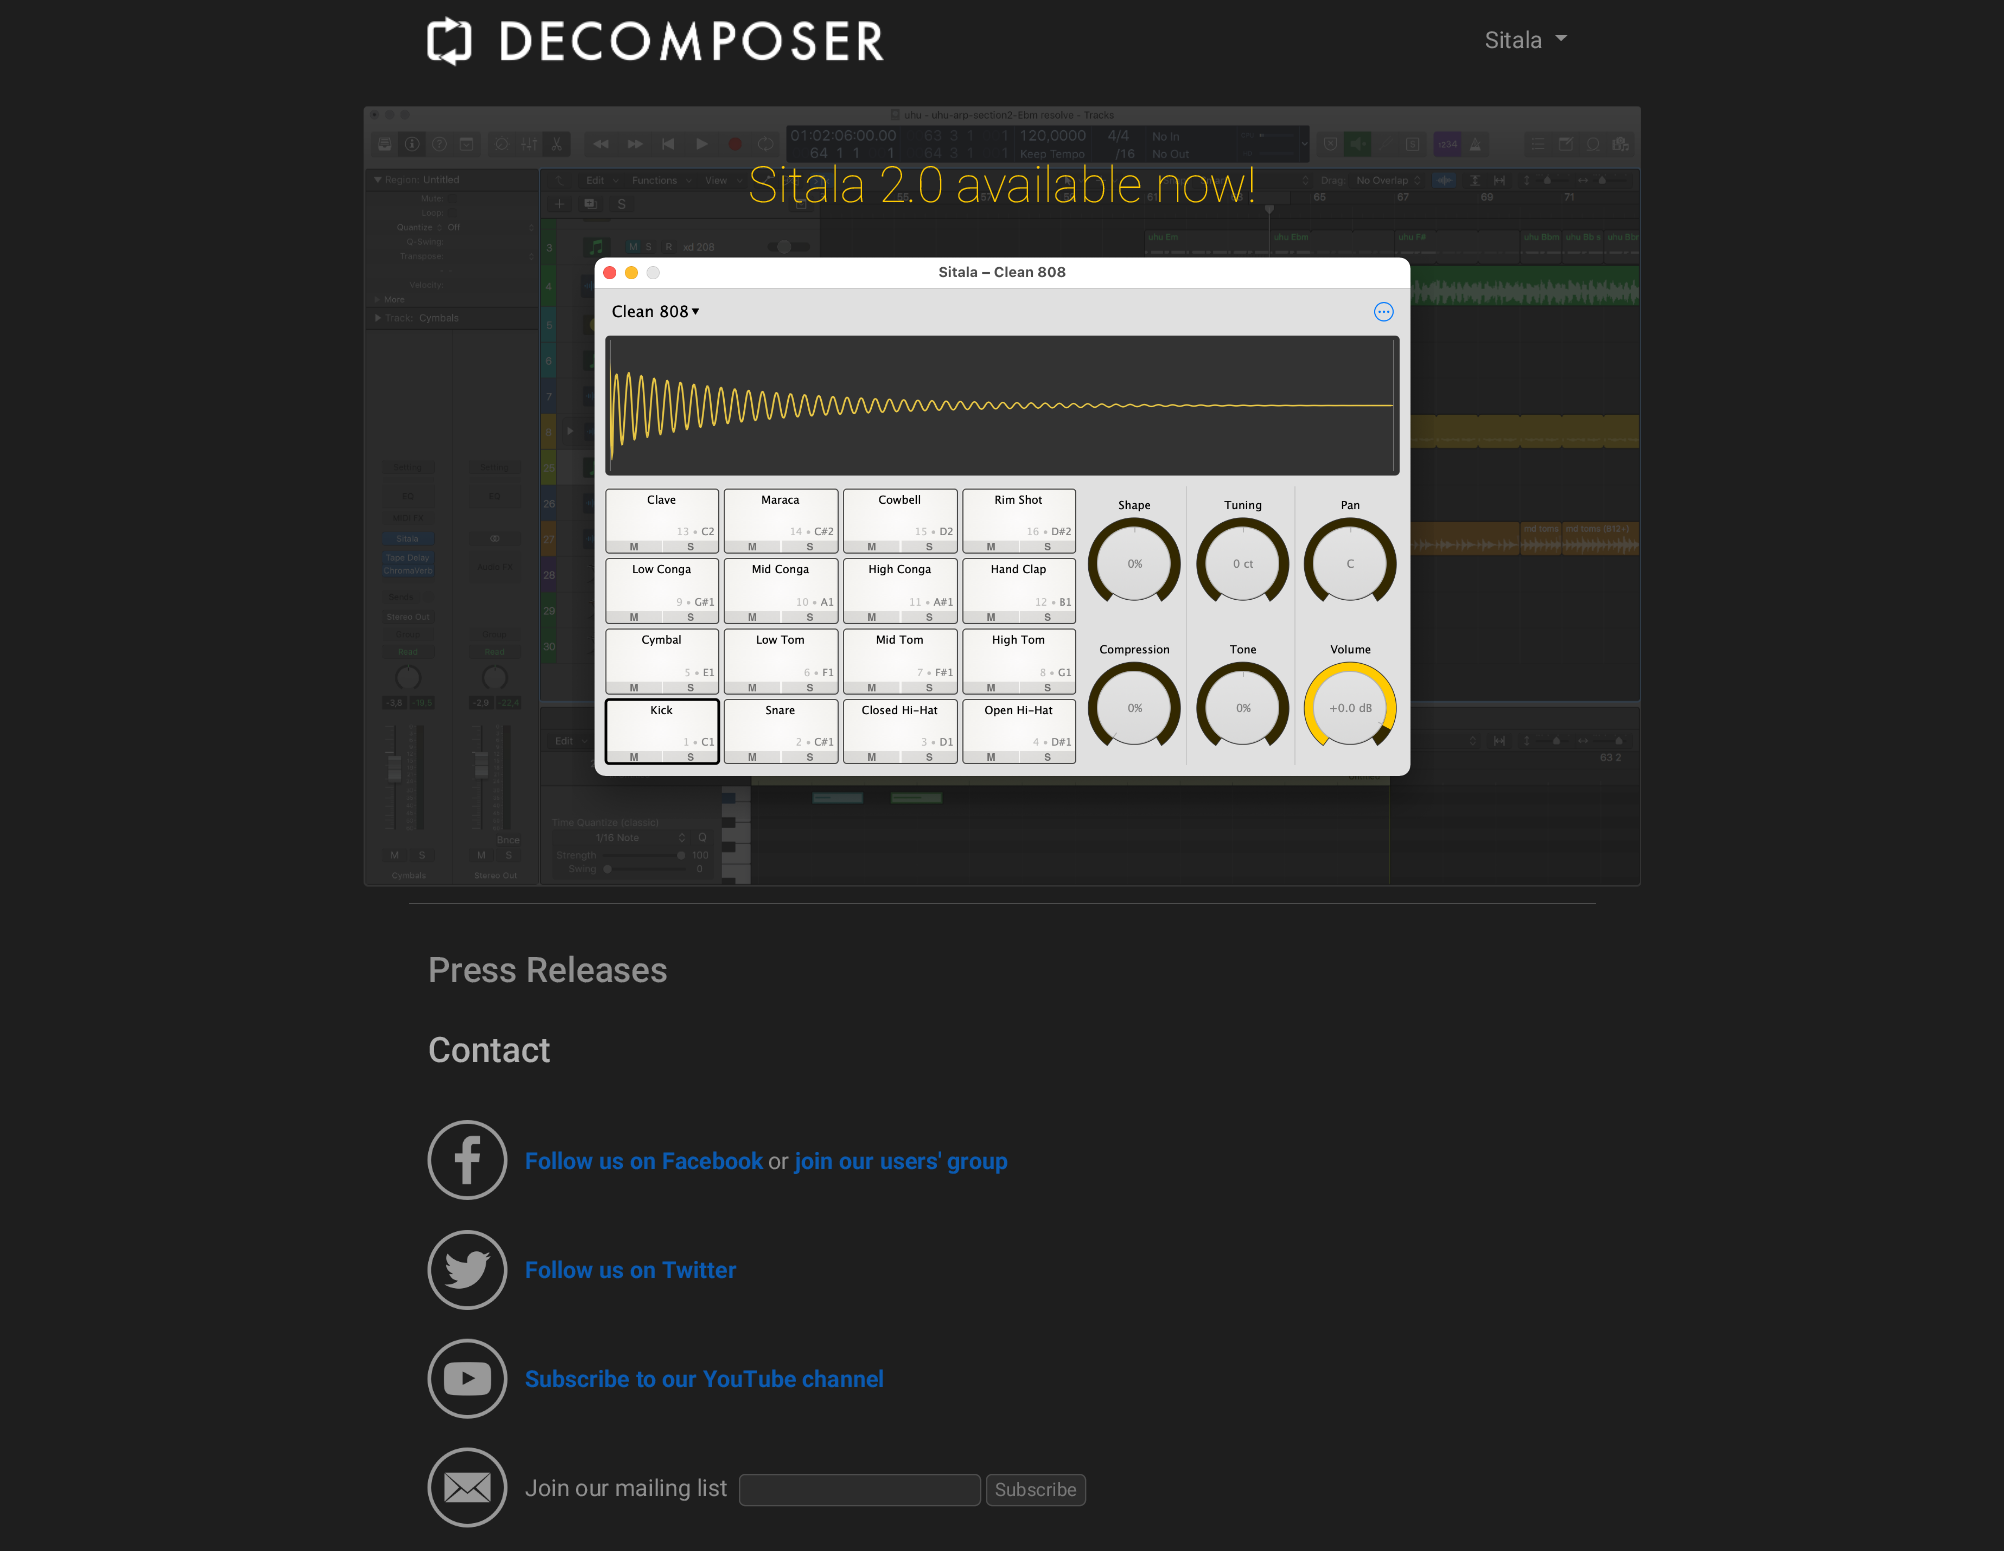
%!PS
<< /PageSize [2004 1551] >> setpagedevice
/mt/moveto load def
/li/lineto load def
/cp/closepath load def
/fl/fill load def
/st/stroke load def
/gs/gsave load def
/gr/grestore load def
/co { dup -16 bitshift 255 div exch dup -8 bitshift 255 and 255 div exch 255 and 255 div setrgbcolor } def
/fn { [ exch dup neg 0 0 3 -1 roll 0 0 ] selectfont } def
/tx { co fn moveto show } def
/bx { co rectfill } def
/rr { 5 dict begin { /r /h /w /y /x } { exch def } forall
  x r add y moveto x w add y 2 copy h add r arct x w add y h add x 1 index r arct
  x y h add x y r arct x y 2 copy exch w add exch r arct closepath end } def
/im { 5 dict begin { /h /w /y /x /name } { exch def } forall
  gsave x y translate w h scale
  w h 8 [w 0 0 h 0 0] name (r) file false 3 colorimage grestore end } def
0 1551 translate 1 -1 scale
4 setmiterlimit
0 0 2004 1551 16#1E1E1E bx
(media/1.raw) 427 16 457 51 im
16#8F8F8F co
1555 35 mt 1567.5 35 li 1561 41 li cp fl
(media/2.raw) 363 106 1278 781 im
(media/3.raw) 572 256 862 563 im
409 903 1187 1 16#4D4D4D bx
(media/4.raw) 427 1120 81 80 im
(media/5.raw) 427 1230 81 80 im
(media/6.raw) 427 1338 81 81 im
(media/7.raw) 427 1447 81 81 im
16#2C2C2C co
739.5 1474.5 241 31 5.5 rr gs fl gr
16#4D4D4D co
st
16#2C2C2C co
986.5 1474.5 99 31 5.5 rr gs fl gr
16#4D4D4D co
st
(Sitala) 1485 48 /Roboto-Regular 23.25 16#8F8F8F tx
(Sitala 2.0 available now!) 748 202 /Roboto-Thin 50 16#FFCA00 tx
(Press Releases) 428 982 /Roboto-Medium 35 16#8F8F8F tx
(Contact) 428 1062 /Roboto-Medium 35 16#B0B0B0 tx
(Follow us on Facebook) 525 1169 /Roboto-Bold 23.25 16#0B5AB0 tx
(or) 768 1169 /Roboto-Regular 23.25 16#8F8F8F tx
(join our users' group) 795 1169 /Roboto-Bold 23.25 16#0B5AB0 tx
(Follow us on Twitter) 525 1278 /Roboto-Bold 23.25 16#0B5AB0 tx
(Subscribe to our YouTube channel) 525 1387 /Roboto-Bold 23.25 16#0B5AB0 tx
(Join our mailing list) 525 1496 /Roboto-Regular 23.25 16#8F8F8F tx
(Subscribe) 995 1496 /Roboto-Regular 18.5 16#797979 tx
showpage
